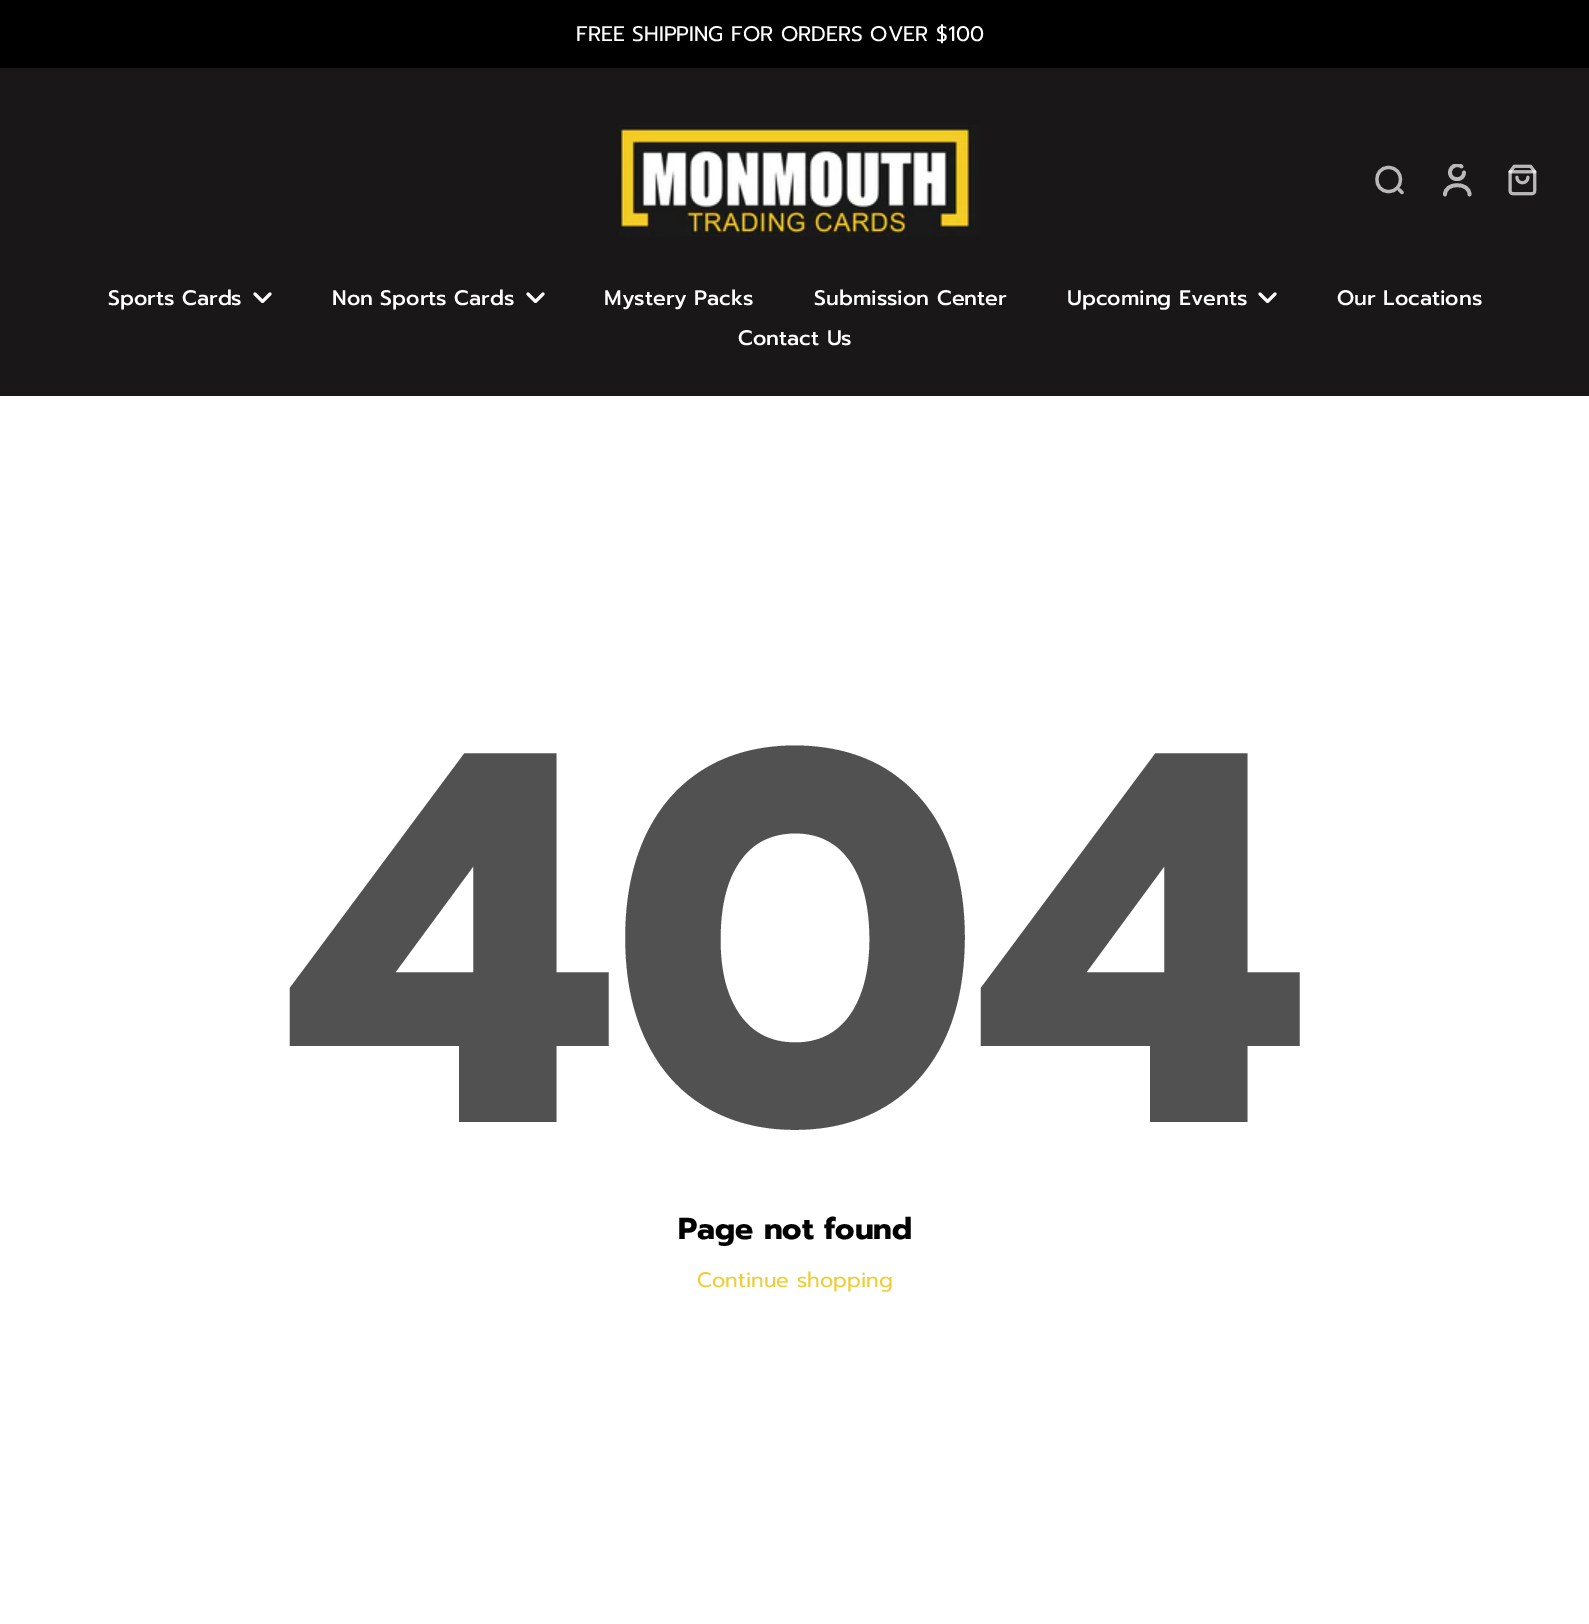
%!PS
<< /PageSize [1589 1624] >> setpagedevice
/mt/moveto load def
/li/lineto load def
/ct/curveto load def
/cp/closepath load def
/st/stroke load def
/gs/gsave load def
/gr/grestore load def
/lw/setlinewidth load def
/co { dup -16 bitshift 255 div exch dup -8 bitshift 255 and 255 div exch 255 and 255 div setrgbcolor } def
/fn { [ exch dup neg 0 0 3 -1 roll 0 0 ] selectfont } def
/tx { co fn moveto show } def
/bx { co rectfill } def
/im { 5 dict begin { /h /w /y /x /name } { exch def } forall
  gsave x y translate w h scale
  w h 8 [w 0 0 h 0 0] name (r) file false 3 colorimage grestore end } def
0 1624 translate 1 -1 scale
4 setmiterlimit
0 0 1589 1624 16#FFFFFF bx
0 0 1589 68 16#000000 bx
0 68 1589 328 16#191717 bx
(media/1.raw) 619 125 361 112 im
16#BAB9B9 co
3.2 lw
1 setlinecap
1 setlinejoin
1388.5 191.5 mt 1404.5 191.5 1404.5 167.5 1388.5 167.5 ct 1373 167.5 1373 191.5 1388.5 191.5 ct cp 1402 192.5 mt 1399.5 190 li st
gs
1440 164 33 33 rectclip
3.7 lw
1461.5 166.5 mt 1454 161 1445 172.5 1453 178 ct 1454.5 179 1456.5 179.5 1458.5 179 ct 1462 178.5 1464 175.5 1464 172.5 ct st
gr
3.7 lw
1469.5 194.5 mt 1469.5 182 1445 182 1445 194.5 ct st
(media/2.raw) 1508 164 29 32 im
16#FFFFFF co
3 lw
255 294 mt 262.5 301.5 li 270 294 li st
528 294 mt 535.5 301.5 li 543 294 li st
1260 294 mt 1267.5 301.5 li 1275 294 li st
(FREE SHIPPING FOR ORDERS OVER $100) 576 41 /Prompt-Regular 21 16#FFFFFF tx
(Sports Cards) 108 305 /Prompt-Medium 21 16#FFFFFF tx
(Non Sports Cards) 332 305 /Prompt-Medium 21 16#FFFFFF tx
(Mystery Packs) 604 305 /Prompt-Medium 21 16#FFFFFF tx
(Submission Center) 814 305 /Prompt-Medium 21 16#FFFFFF tx
(Upcoming Events) 1067 305 /Prompt-Medium 21 16#FFFFFF tx
(Our Locations) 1337 305 /Prompt-Medium 21 16#FFFFFF tx
(Contact Us) 738 345 /Prompt-Medium 21 16#FFFFFF tx
(404) 287 1122 /Prompt-Bold 528 16#525151 tx
(Page not found) 678 1239 /Prompt-Bold 30.25 16#000000 tx
(Continue shopping) 697 1287 /Prompt-Regular 21 16#EFCD37 tx
showpage
